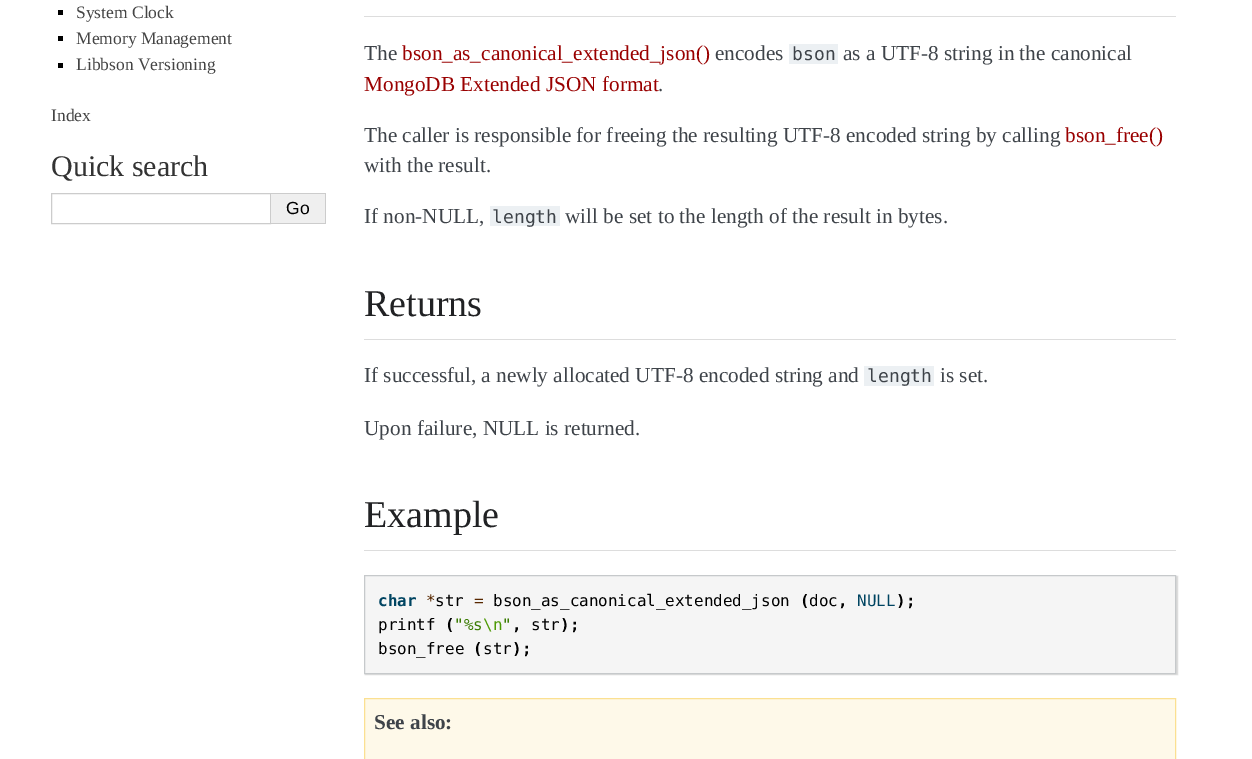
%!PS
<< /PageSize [1252 759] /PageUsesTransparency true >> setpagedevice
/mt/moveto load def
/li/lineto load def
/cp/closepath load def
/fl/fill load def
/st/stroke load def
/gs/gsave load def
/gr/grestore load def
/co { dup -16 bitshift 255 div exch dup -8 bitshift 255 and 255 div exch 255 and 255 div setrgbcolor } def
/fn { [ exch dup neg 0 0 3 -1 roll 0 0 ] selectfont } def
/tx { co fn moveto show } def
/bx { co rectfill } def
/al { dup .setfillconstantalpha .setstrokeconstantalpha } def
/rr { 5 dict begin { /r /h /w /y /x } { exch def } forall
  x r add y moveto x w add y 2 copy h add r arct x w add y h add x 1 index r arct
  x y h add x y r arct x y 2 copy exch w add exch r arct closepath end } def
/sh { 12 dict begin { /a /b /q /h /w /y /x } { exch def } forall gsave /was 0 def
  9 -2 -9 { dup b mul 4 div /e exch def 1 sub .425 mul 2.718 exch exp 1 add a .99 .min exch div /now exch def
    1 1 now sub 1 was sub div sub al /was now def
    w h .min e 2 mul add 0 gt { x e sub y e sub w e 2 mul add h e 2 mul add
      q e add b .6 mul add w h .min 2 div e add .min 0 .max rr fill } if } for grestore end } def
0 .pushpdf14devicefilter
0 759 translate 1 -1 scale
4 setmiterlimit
0 0 1252 759 16#FFFFFF bx
58 10 5 5 16#000000 bx
58 36 5 5 16#000000 bx
58 63 5 5 16#000000 bx
16#CCCCCC co
51.5 193.5 219 30 rectstroke
271 194 54 29 16#EFEFEF bx
271 193 55 1 16#CCCCCC bx
325 193 1 31 16#CCCCCC bx
271 223 55 1 16#CCCCCC bx
364 16 812 1 16#DDDDDD bx
789 44 49 20 16#ECF0F3 bx
490 206 70 20 16#ECF0F3 bx
364 339 812 1 16#DDDDDD bx
864 366 70 20 16#ECF0F3 bx
364 550 812 1 16#DDDDDD bx
16#D8D8D8 co
365 576 813 99 0 .5 1 sh
16#F5F5F5 co
364.5 575.5 mt 1175.5 575.5 li 1175.5 673.5 li 364.5 673.5 li cp gs fl gr
16#C6C9CB co
st
16#FEF9E9 co
364.5 698.5 mt 1175.5 698.5 li 1175.5 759.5 li 364.5 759.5 li cp gs fl gr
16#FBE091 co
st
(System Clock) 76 18 /LiberationSerif-Regular 17.5 16#444444 tx
(Memory Management) 76 44 /LiberationSerif-Regular 17.5 16#444444 tx
(Libbson Versioning) 76 70 /LiberationSerif-Regular 17.5 16#444444 tx
(Index) 51 121 /LiberationSerif-Regular 17.5 16#444444 tx
(Quick search) 51 176 /LiberationSerif-Regular 30 16#333333 tx
(Go) 286 214 /LiberationSans-Regular 17.5 16#000000 tx
(The) 364 60 /LiberationSerif-Regular 21.25 16#3E4349 tx
(bson_as_canonical_extended_json\(\)) 402 60 /LiberationSerif-Regular 21.25 16#990000 tx
(encodes) 715 60 /LiberationSerif-Regular 21.25 16#3E4349 tx
(bson) 792 60 /DejaVuSansMono-Regular 18 16#3E4349 tx
(as a UTF-8 string in the canonical) 843 60 /LiberationSerif-Regular 21.25 16#3E4349 tx
(MongoDB Extended JSON format) 364 91 /LiberationSerif-Regular 21.25 16#990000 tx
(.) 658 91 /LiberationSerif-Regular 21.25 16#3E4349 tx
(The caller is responsible for freeing the resulting UTF-8 encoded string by calling) 364 142 /LiberationSerif-Regular 21.25 16#3E4349 tx
(bson_free\(\)) 1065 142 /LiberationSerif-Regular 21.25 16#990000 tx
(with the result.) 364 172 /LiberationSerif-Regular 21.25 16#3E4349 tx
(If non-NULL,) 364 223 /LiberationSerif-Regular 21.25 16#3E4349 tx
(length) 492 223 /DejaVuSansMono-Regular 18 16#3E4349 tx
(will be set to the length of the result in bytes.) 565 223 /LiberationSerif-Regular 21.25 16#3E4349 tx
(Returns) 364 316 /LiberationSerif-Regular 38 16#212224 tx
(If successful, a newly allocated UTF-8 encoded string and) 364 382 /LiberationSerif-Regular 21.25 16#3E4349 tx
(length) 867 382 /DejaVuSansMono-Regular 18 16#3E4349 tx
(is set.) 940 382 /LiberationSerif-Regular 21.25 16#3E4349 tx
(Upon failure, NULL is returned.) 364 435 /LiberationSerif-Regular 21.25 16#3E4349 tx
(Example) 364 527 /LiberationSerif-Regular 38 16#212224 tx
(char) 378 606 /DejaVuSansMono-Bold 15.9 16#004461 tx
(*) 426 606 /DejaVuSansMono-Regular 15.9 16#582800 tx
(str) 435 606 /DejaVuSansMono-Regular 15.9 16#000000 tx
(=) 474 606 /DejaVuSansMono-Regular 15.9 16#582800 tx
(bson_as_canonical_extended_json) 493 606 /DejaVuSansMono-Regular 15.9 16#000000 tx
(\() 800 606 /DejaVuSansMono-Bold 15.9 16#000000 tx
(doc) 809 606 /DejaVuSansMono-Regular 15.9 16#000000 tx
(NULL) 857 606 /DejaVuSansMono-Regular 15.9 16#004461 tx
(\);) 896 606 /DejaVuSansMono-Bold 15.9 16#000000 tx
(,) 838 606 /DejaVuSansMono-Bold 15.9 16#000000 tx
(printf) 378 630 /DejaVuSansMono-Regular 15.9 16#000000 tx
(\() 445 630 /DejaVuSansMono-Bold 15.9 16#000000 tx
("%s) 454 630 /DejaVuSansMono-Regular 15.9 16#3B7C03 tx
(\\n) 483 630 /DejaVuSansMono-Regular 15.9 16#4E9A06 tx
(") 502 630 /DejaVuSansMono-Regular 15.9 16#3B7C03 tx
(,) 512 630 /DejaVuSansMono-Bold 15.9 16#000000 tx
(str) 531 630 /DejaVuSansMono-Regular 15.9 16#000000 tx
(\);) 560 630 /DejaVuSansMono-Bold 15.9 16#000000 tx
(bson_free) 378 654 /DejaVuSansMono-Regular 15.9 16#000000 tx
(\() 473 654 /DejaVuSansMono-Bold 15.9 16#000000 tx
(str) 483 654 /DejaVuSansMono-Regular 15.9 16#000000 tx
(\);) 512 654 /DejaVuSansMono-Bold 15.9 16#000000 tx
(See also:) 374 729 /LiberationSerif-Bold 21.25 16#3E4349 tx
.poppdf14devicefilter showpage
